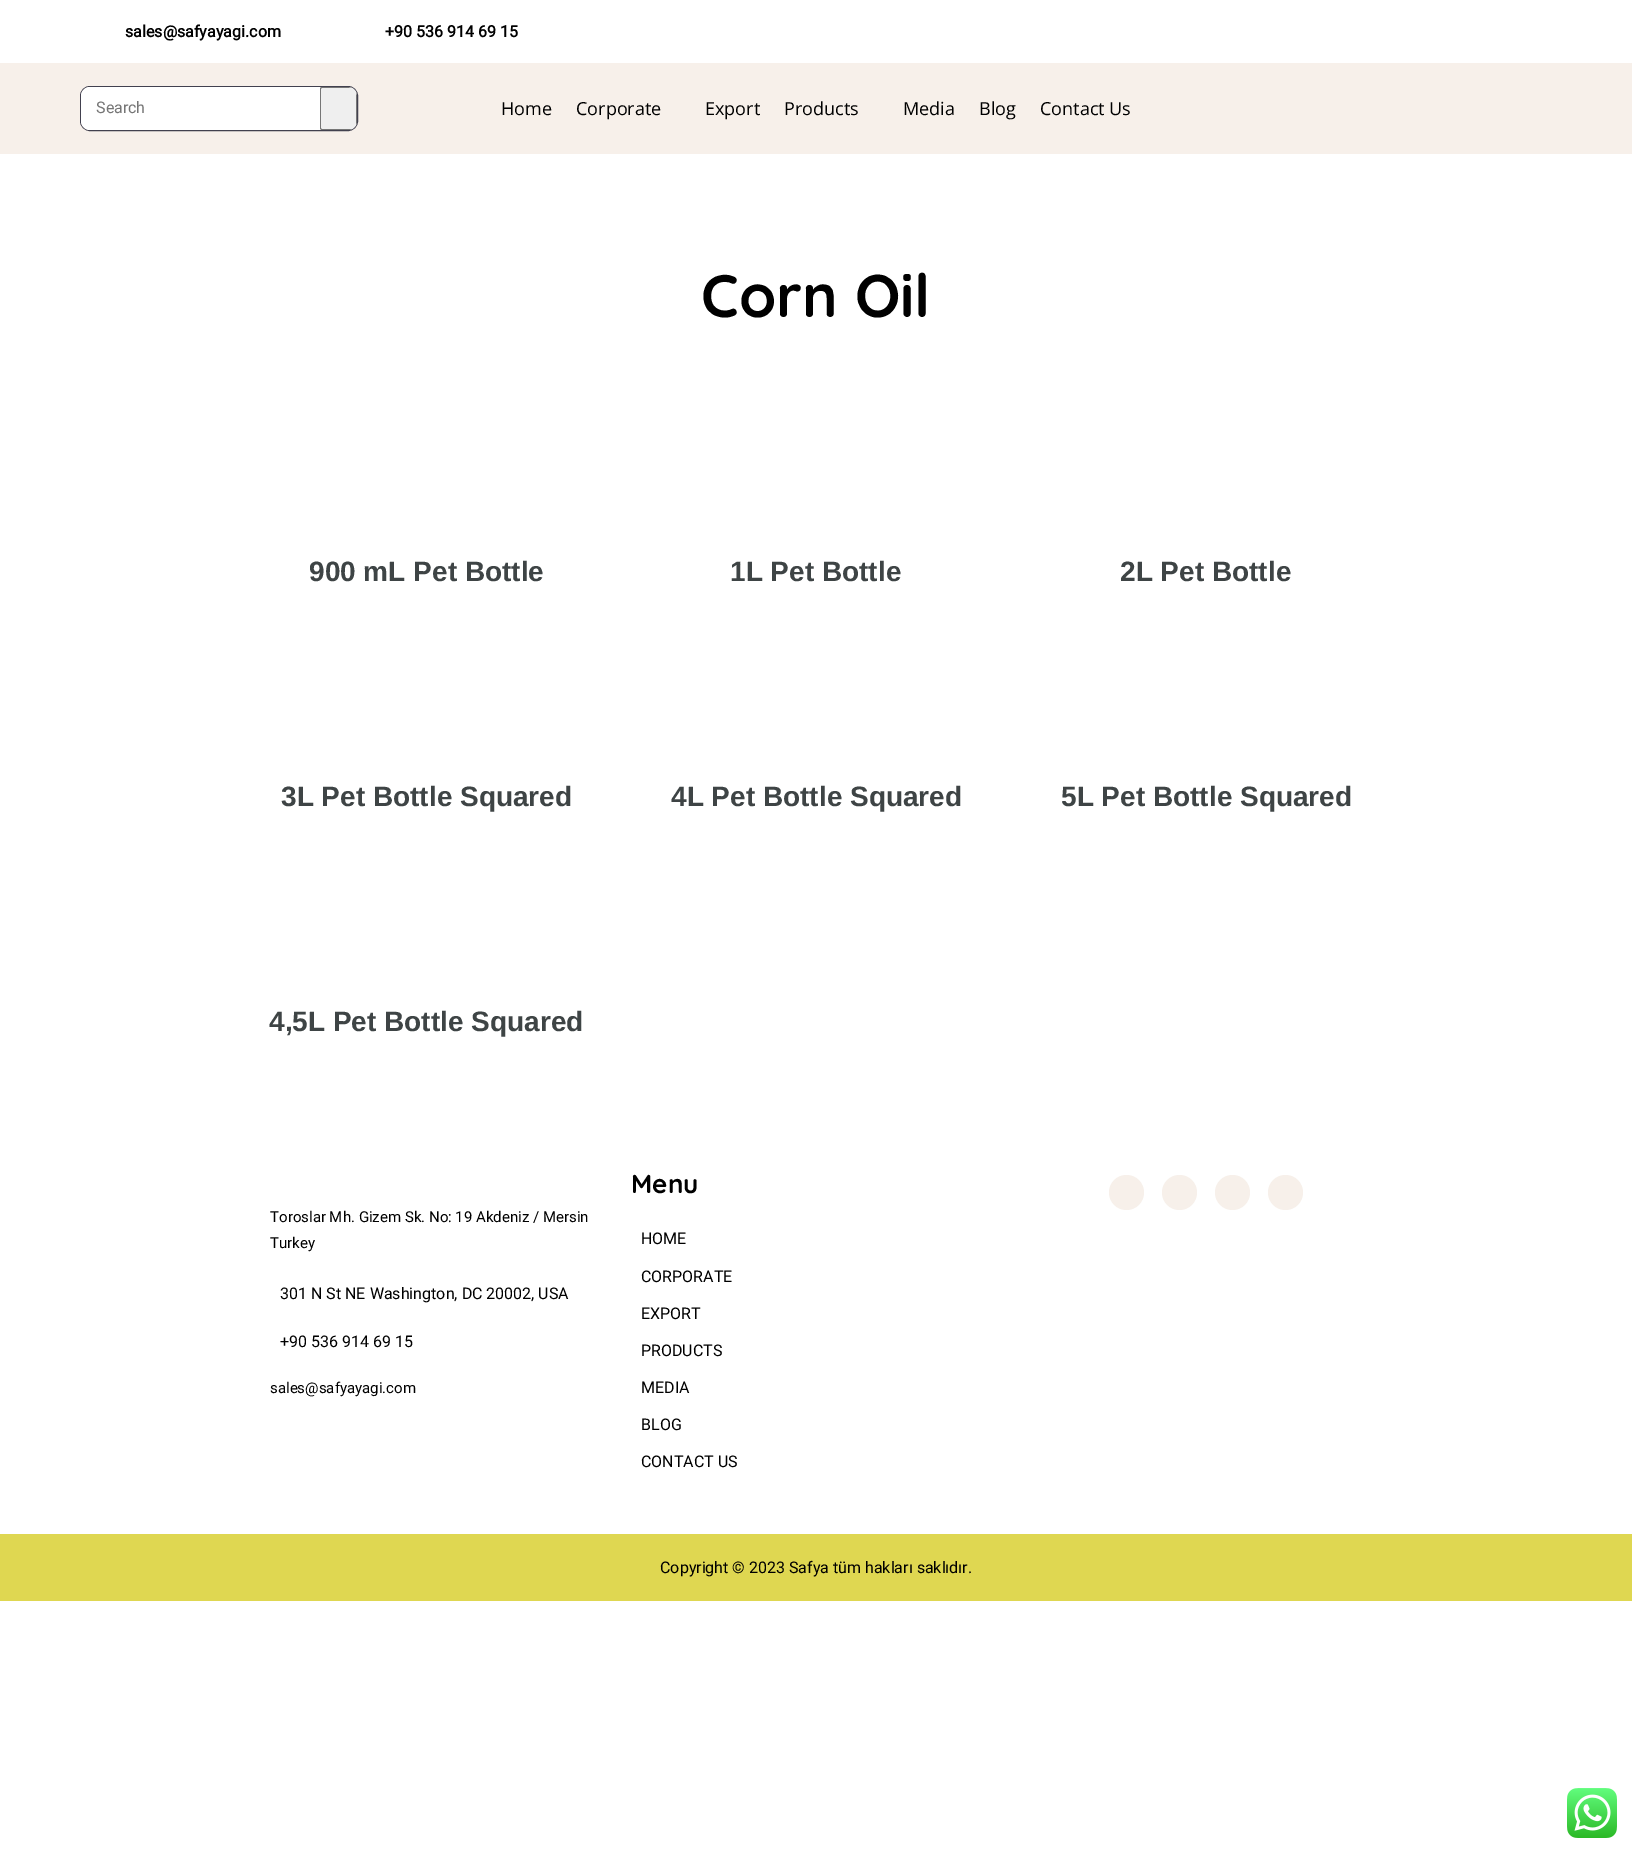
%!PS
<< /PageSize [1632 1853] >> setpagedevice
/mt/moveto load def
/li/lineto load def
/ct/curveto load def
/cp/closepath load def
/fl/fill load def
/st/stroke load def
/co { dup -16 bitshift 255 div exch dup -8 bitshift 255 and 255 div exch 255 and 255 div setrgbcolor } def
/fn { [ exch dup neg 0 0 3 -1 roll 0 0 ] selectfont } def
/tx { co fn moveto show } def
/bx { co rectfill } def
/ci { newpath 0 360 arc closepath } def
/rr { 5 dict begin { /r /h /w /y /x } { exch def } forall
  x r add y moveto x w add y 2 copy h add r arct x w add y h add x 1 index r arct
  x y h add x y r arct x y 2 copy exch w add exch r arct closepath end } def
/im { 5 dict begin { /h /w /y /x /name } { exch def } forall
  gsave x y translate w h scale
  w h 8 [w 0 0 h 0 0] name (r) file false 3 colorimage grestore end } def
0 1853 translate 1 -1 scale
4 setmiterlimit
0 0 1632 1853 16#FFFFFF bx
0 63 1632 91 16#F7F0EA bx
16#42414F co
80.5 86.5 277 44 9.5 rr st
16#FFFFFF co
90 87 mt 320 87 li 320 130 li 90 130 li 85 130 81 126 81 121 ct 81 96 li 81 91 85 87 90 87 ct cp fl
16#EFEFEF co
322 87 mt 348 87 li 353 87 357 91 357 96 ct 357 121 li 357 126 353 130 348 130 ct 322 130 li 321 130 320 129 320 128 ct 320 89 li 320 88 321 87 322 87 ct cp fl
16#767676 co
322 87 mt 321 87 320 88 320 89 ct 320 128 li 320 129 321 130 322 130 ct 348 130 li 349 130 351 130 352 129 ct 322 129 li 321 129 321 129 321 128 ct 321 89 li 321 88 321 88 322 88 ct 352 88 li 348 87 li cp 357 96 mt 356 92 li 356 125 li 357 124 357 122 357 121 ct cp eofill
16#F7F0EA co
1126.5 1192.5 17.5 ci fl
1179.5 1192.5 17.5 ci fl
1232.5 1192.5 17.5 ci fl
1285.5 1192.5 17.5 ci fl
0 1534 1632 67 16#DFD751 bx
(media/1.raw) 1567 1788 50 50 im
(sales@safyayagi.com) 125 37 /Roboto-Bold 16 16#000000 tx
(+90 536 914 69 15) 385 37 /Roboto-Bold 16 16#000000 tx
(Search) 96 113 /Roboto-Regular 16 16#757575 tx
(Home) 501 115 /OpenSans-Regular 18 16#000000 tx
(Corporate) 576 115 /OpenSans-Regular 18 16#000000 tx
(Export) 705 115 /OpenSans-Regular 18 16#000000 tx
(Products) 784 115 /OpenSans-Regular 18 16#000000 tx
(Media) 903 115 /OpenSans-Regular 18 16#000000 tx
(Blog) 979 115 /OpenSans-Regular 18 16#000000 tx
(Contact Us) 1040 115 /OpenSans-Regular 18 16#000000 tx
(Corn Oil) 701 317 /Quicksand-Bold 60 16#000000 tx
(900 mL Pet Bottle) 309 581 /LiberationSans-Bold 28 16#3E4445 tx
(1L Pet Bottle) 730 581 /LiberationSans-Bold 28 16#3E4445 tx
(2L Pet Bottle) 1120 581 /LiberationSans-Bold 28 16#3E4445 tx
(3L Pet Bottle Squared) 281 806 /LiberationSans-Bold 28 16#3E4445 tx
(4L Pet Bottle Squared) 671 806 /LiberationSans-Bold 28 16#3E4445 tx
(5L Pet Bottle Squared) 1061 806 /LiberationSans-Bold 28 16#3E4445 tx
(4,5L Pet Bottle Squared) 269 1031 /LiberationSans-Bold 28 16#3E4445 tx
(Menu) 631 1193 /Quicksand-Bold 26 16#000000 tx
(HOME) 641 1244 /Roboto-Regular 16 16#000000 tx
(CORPORATE) 641 1282 /Roboto-Regular 16 16#000000 tx
(EXPORT) 641 1319 /Roboto-Regular 16 16#000000 tx
(PRODUCTS) 641 1356 /Roboto-Regular 16 16#000000 tx
(MEDIA) 641 1393 /Roboto-Regular 16 16#000000 tx
(BLOG) 641 1430 /Roboto-Regular 16 16#000000 tx
(CONTACT US) 641 1467 /Roboto-Regular 16 16#000000 tx
(Toroslar Mh. Gizem Sk. No: 19 Akdeniz / Mersin) 270 1222 /Roboto-Regular 15 16#000000 tx
(Turkey) 270 1248 /Roboto-Regular 15 16#000000 tx
(301 N St NE Washington, DC 20002, USA) 280 1299 /Roboto-Regular 16 16#000000 tx
(+90 536 914 69 15) 280 1347 /Roboto-Regular 16 16#000000 tx
(sales@safyayagi.com) 270 1393 /Roboto-Regular 15 16#000000 tx
(Copyright © 2023 Safya tüm hakları saklıdır.) 660 1573 /Roboto-Regular 16 16#000000 tx
showpage
